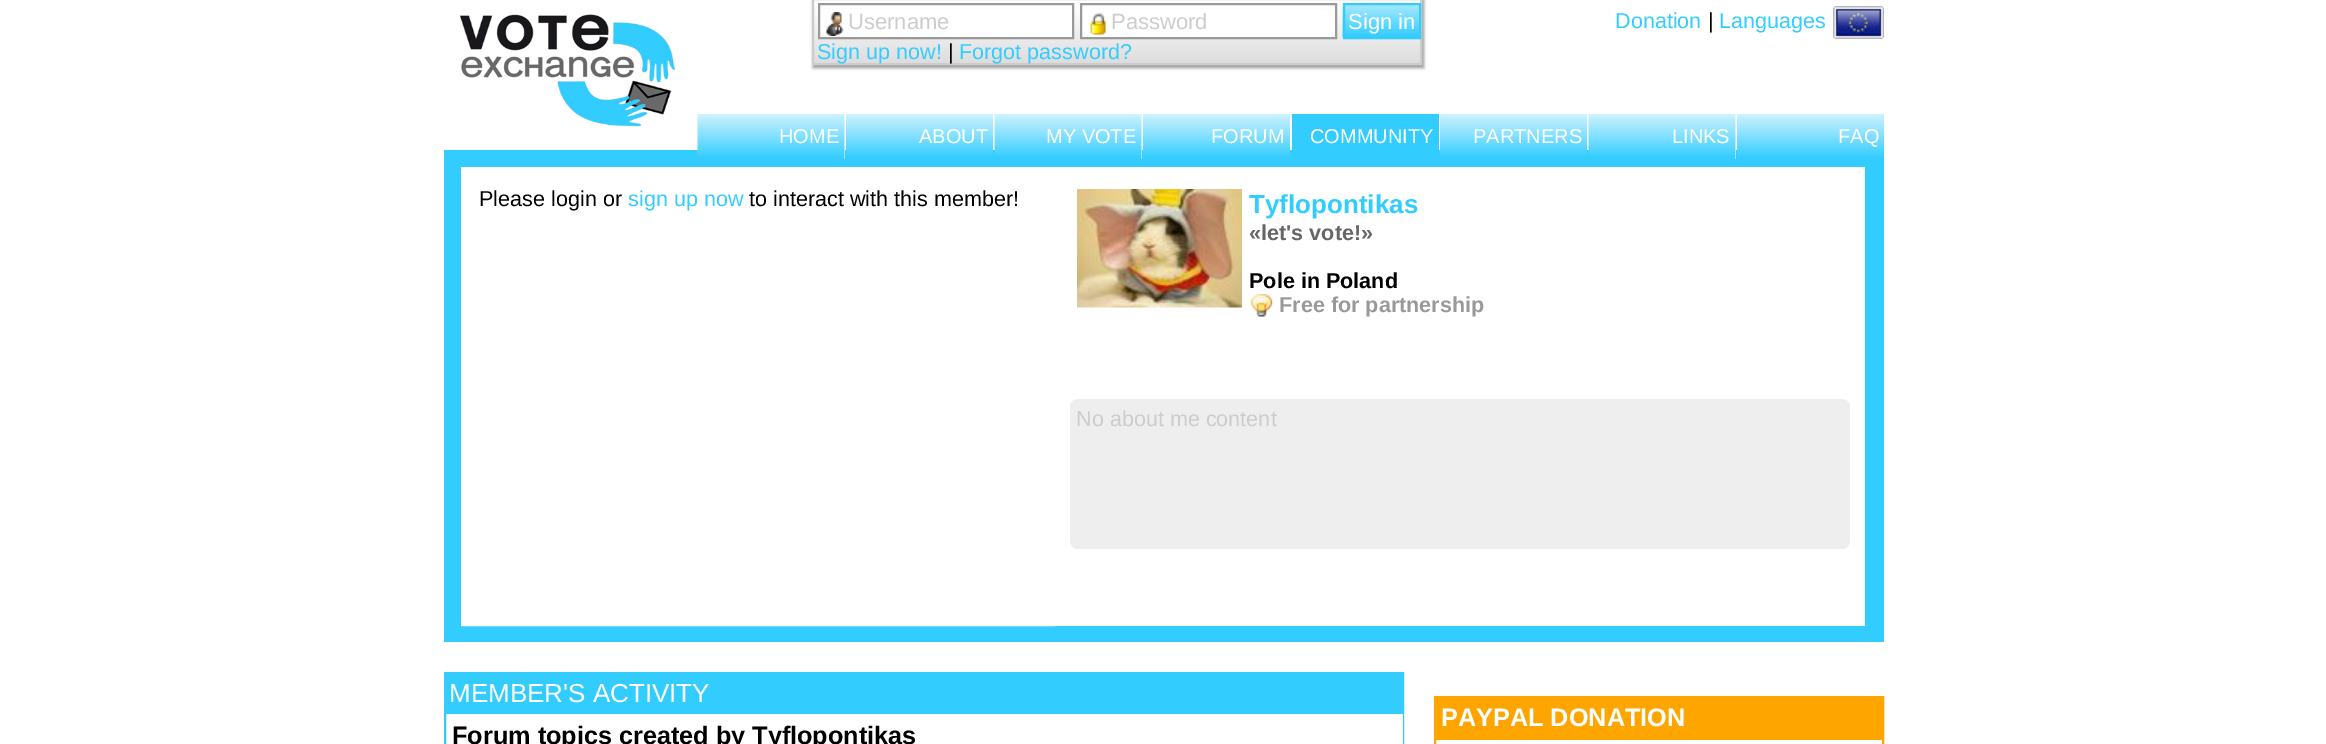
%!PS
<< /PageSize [2326 744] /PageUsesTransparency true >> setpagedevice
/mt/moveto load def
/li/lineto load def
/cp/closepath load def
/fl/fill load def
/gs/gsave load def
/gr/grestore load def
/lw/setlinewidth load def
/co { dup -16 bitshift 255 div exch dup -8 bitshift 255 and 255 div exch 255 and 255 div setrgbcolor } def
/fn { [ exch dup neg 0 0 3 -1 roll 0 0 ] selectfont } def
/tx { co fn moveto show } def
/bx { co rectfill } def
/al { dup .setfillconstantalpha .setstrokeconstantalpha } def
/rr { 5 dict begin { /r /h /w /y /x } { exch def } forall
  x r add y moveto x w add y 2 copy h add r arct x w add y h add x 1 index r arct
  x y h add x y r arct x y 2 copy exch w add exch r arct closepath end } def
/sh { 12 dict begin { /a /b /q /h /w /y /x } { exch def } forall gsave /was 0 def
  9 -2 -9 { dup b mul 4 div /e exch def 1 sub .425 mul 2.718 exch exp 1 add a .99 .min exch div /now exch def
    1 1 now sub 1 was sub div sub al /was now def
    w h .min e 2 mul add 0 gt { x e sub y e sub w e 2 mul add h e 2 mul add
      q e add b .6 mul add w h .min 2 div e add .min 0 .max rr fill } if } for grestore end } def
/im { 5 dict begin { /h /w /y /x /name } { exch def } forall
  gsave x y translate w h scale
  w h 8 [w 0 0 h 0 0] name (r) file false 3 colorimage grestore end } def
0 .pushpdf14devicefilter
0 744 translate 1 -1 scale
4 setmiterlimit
0 0 2326 744 16#FFFFFF bx
(media/1.raw) 460 14 216 113 im
16#999999 co
813 0 611 68 0 1.5 1 sh
gs 814 0 mt 1420 0 li 1420 63 li 814 63 li cp clip newpath
<< /ShadingType 2 /ColorSpace /DeviceRGB /Coords [813 63 813 -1.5] /Extend [true true] /Function << /FunctionType 3 /Domain [0 1] /Functions [<< /FunctionType 2 /Domain [0 1] /C0 [.867 .867 .867] /C1 [1 1 1] /N 1 >> << /FunctionType 2 /Domain [0 1] /C0 [1 1 1] /C1 [1 1 1] /N 1 >>] /Bounds [.9] /Encode [0 1 0 1] >> >> shfill gr
16#CCCCCC co
2 lw
813 -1 608 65 rectstroke
820 9 252 28 16#FFFFFF bx
(media/2.raw) 826 12 18 24 im
16#999999 co
819 4 254 34 rectstroke
1082 9 253 28 16#FFFFFF bx
(media/3.raw) 1090 13 16 22 im
16#999999 co
1081 4 255 34 rectstroke
(media/4.raw) 1342 3 77 35 im
16#33CCFF co
1344 4 76 34 rectstroke
(media/5.raw) 1833 6 51 33 im
444 150 1440 492 16#33CCFF bx
844 150 1 9 16#FFFFFF bx
(media/6.raw) 697 114 148 45 im
(media/7.raw) 846 114 147 45 im
1141 150 1 9 16#FFFFFF bx
(media/6.raw) 994 114 148 45 im
(media/7.raw) 1143 114 147 45 im
1292 114 147 36 16#33CCFF bx
(media/7.raw) 1440 114 147 45 im
1735 150 1 9 16#FFFFFF bx
(media/6.raw) 1588 114 148 45 im
(media/7.raw) 1737 114 147 45 im
5 lw
463.5 169.5 589 454 rectstroke
466 172 584 449 16#FFFFFF bx
1055 167 810 459 16#FFFFFF bx
(media/8.raw) 1077 189 165 119 im
(media/9.raw) 1250 294 23 23 im
16#EEEEEE co
1070 399 780 150 8 rr fl
16#33CCFF co
2 lw
445 673 958 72 rectstroke
446 674 956 40 16#33CCFF bx
1402 714 1 30 16#FFFFFF bx
16#FFA500 co
1435 697 448 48 rectstroke
1436 698 446 42 16#FFA500 bx
(Username) 848 29 /LiberationSans-Regular 22 16#CCCCCC tx
(Password) 1111 29 /LiberationSans-Regular 22 16#CCCCCC tx
(Sign in) 1348 29 /LiberationSans-Regular 22 16#FFFFFF tx
(Sign up now!) 817 59 /LiberationSans-Regular 21.6 16#33CCFF tx
(|) 948 59 /LiberationSans-Regular 21.6 16#000000 tx
(Forgot password?) 959 59 /LiberationSans-Regular 21.6 16#33CCFF tx
(Donation) 1615 28 /LiberationSans-Regular 21.6 16#33CCFF tx
(|) 1708 28 /LiberationSans-Regular 21.6 16#000000 tx
(Languages) 1719 28 /LiberationSans-Regular 21.6 16#33CCFF tx
(HOME) 779 143 /LiberationSans-Regular 20 16#FFFFFF tx
(ABOUT) 919 143 /LiberationSans-Regular 20 16#FFFFFF tx
(MY VOTE) 1046 143 /LiberationSans-Regular 20 16#FFFFFF tx
(FORUM) 1211 143 /LiberationSans-Regular 20 16#FFFFFF tx
(COMMUNITY) 1310 143 /LiberationSans-Regular 20 16#FFFFFF tx
(PARTNERS) 1473 143 /LiberationSans-Regular 20 16#FFFFFF tx
(LINKS) 1672 143 /LiberationSans-Regular 20 16#FFFFFF tx
(FAQ) 1838 143 /LiberationSans-Regular 20 16#FFFFFF tx
(Please login or) 479 206 /LiberationSans-Regular 21.6 16#000000 tx
(sign up now) 628 206 /LiberationSans-Regular 21.6 16#33CCFF tx
(to interact with this member!) 749 206 /LiberationSans-Regular 21.6 16#000000 tx
(Tyflopontikas) 1249 213 /LiberationSans-Bold 26 16#33CCFF tx
(«let's vote!») 1249 240 /LiberationSans-Bold 21.6 16#666666 tx
(Pole in Poland) 1249 288 /LiberationSans-Bold 21.6 16#000000 tx
(Free for partnership) 1279 312 /LiberationSans-Bold 21.6 16#999999 tx
(No about me content) 1076 426 /LiberationSans-Regular 21.6 16#CCCCCC tx
(MEMBER'S ACTIVITY) 449 702 /LiberationSans-Regular 26 16#FFFFFF tx
(Forum topics created by Tyflopontikas) 452 744 /LiberationSans-Bold 25.25 16#000000 tx
(PAYPAL DONATION) 1441 726 /LiberationSans-Bold 25.25 16#FFFFFF tx
.poppdf14devicefilter showpage
